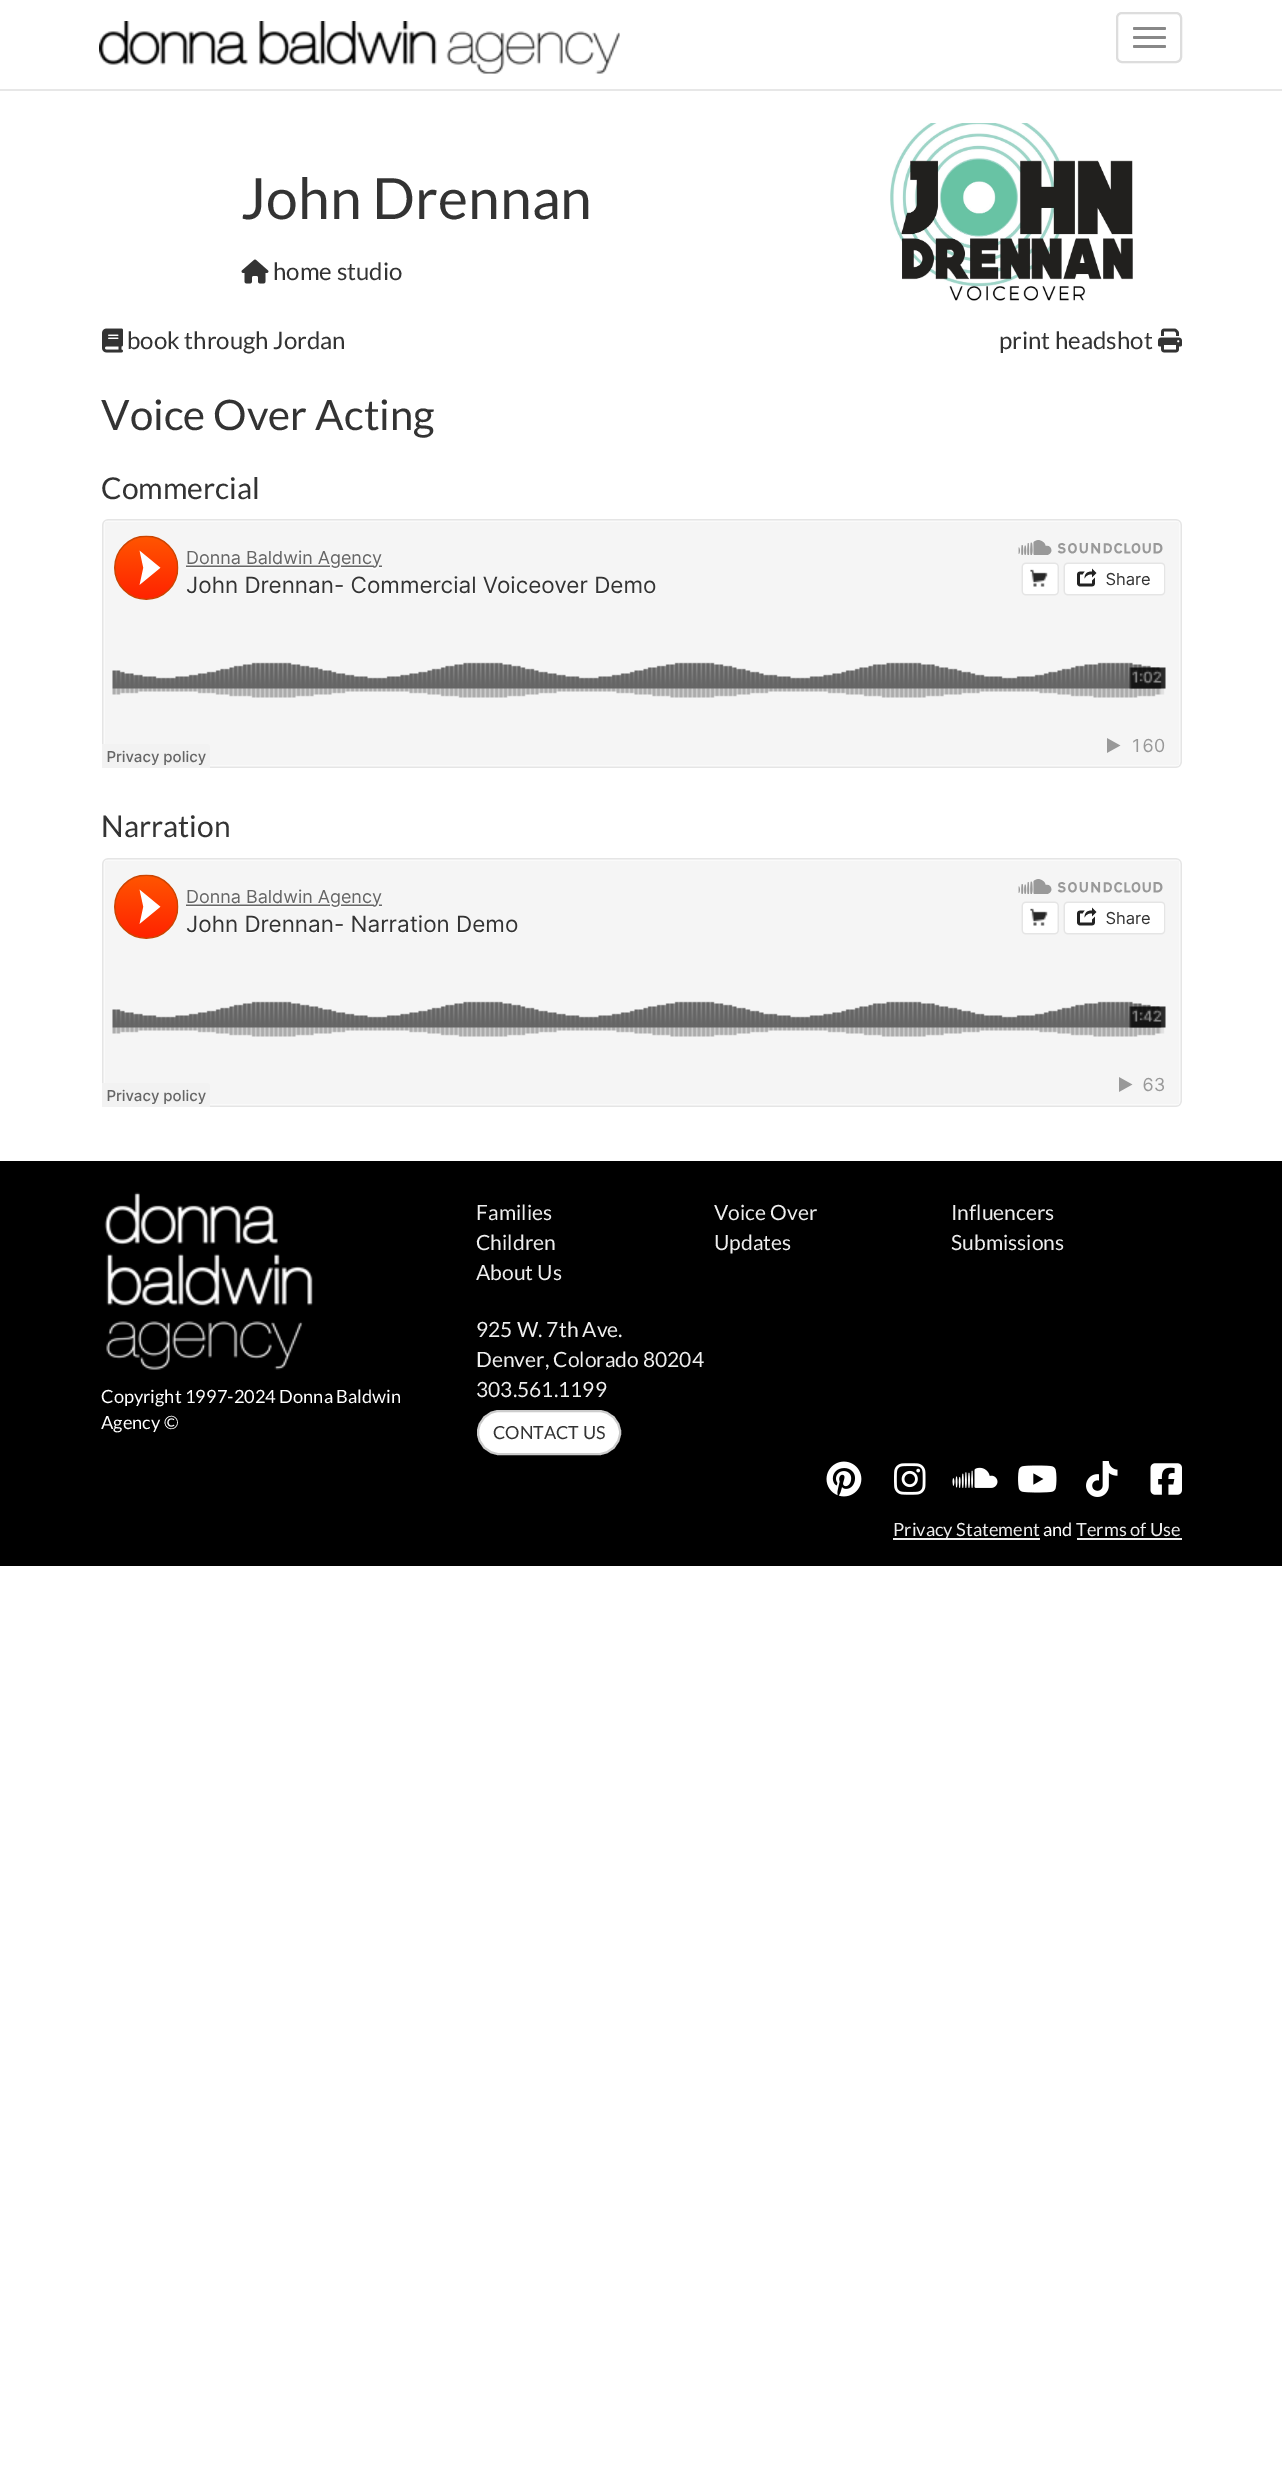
%!PS
<< /PageSize [1282 2475] >> setpagedevice
/fl/fill load def
/st/stroke load def
/gs/gsave load def
/gr/grestore load def
/lw/setlinewidth load def
/co { dup -16 bitshift 255 div exch dup -8 bitshift 255 and 255 div exch 255 and 255 div setrgbcolor } def
/fn { [ exch dup neg 0 0 3 -1 roll 0 0 ] selectfont } def
/tx { co fn moveto show } def
/bx { co rectfill } def
/rr { 5 dict begin { /r /h /w /y /x } { exch def } forall
  x r add y moveto x w add y 2 copy h add r arct x w add y h add x 1 index r arct
  x y h add x y r arct x y 2 copy exch w add exch r arct closepath end } def
/im { 5 dict begin { /h /w /y /x /name } { exch def } forall
  gsave x y translate w h scale
  w h 8 [w 0 0 h 0 0] name (r) file false 3 colorimage grestore end } def
0 2475 translate 1 -1 scale
4 setmiterlimit
0 0 1282 2475 16#FFFFFF bx
0 89 1282 2 16#E7E7E7 bx
(media/1.raw) 99 21 521 53 im
16#DDDDDD co
2 lw
1117 13 64 49 5 rr st
16#888888 co
1133 27 33 3 1.5 rr fl
1133 36 33 3 1.5 rr fl
1133 45 33 3 1.5 rr fl
(media/2.raw) 241 259 28 25 im
(media/3.raw) 890 123 243 178 im
(media/4.raw) 102 328 21 25 im
(media/5.raw) 1158 328 24 25 im
(media/6.raw) 102 519 1080 249 im
(media/7.raw) 102 858 1080 249 im
0 1161 1282 405 16#000000 bx
(media/8.raw) 104 1192 209 178 im
16#FFFFFF co
478 1411 142 43 21.5 rr gs fl gr
16#CCCCCC co
st
(media/9.raw) 826 1461 36 36 im
(media/10.raw) 894 1463 32 32 im
(media/11.raw) 952 1467 46 21 im
(media/12.raw) 1018 1465 39 28 im
(media/13.raw) 1086 1461 32 36 im
(media/14.raw) 1150 1463 32 32 im
893 1538 147 2 16#EEEEEE bx
1077 1538 105 2 16#EEEEEE bx
(John Drennan) 241 219 /Lato-Regular 57 16#333333 tx
(home studio) 273 280 /Lato-Regular 24 16#333333 tx
(book through Jordan) 127 349 /Lato-Regular 24 16#333333 tx
(print headshot) 999 349 /Lato-Regular 24 16#333333 tx
(Voice Over Acting) 101 430 /Lato-Regular 42 16#333333 tx
(Commercial) 101 499 /Lato-Regular 30 16#333333 tx
(Narration) 101 837 /Lato-Regular 30 16#333333 tx
(Copyright 1997-2024 Donna Baldwin) 101 1403 /Lato-Regular 18.25 16#FFFFFF tx
(Agency ©) 101 1429 /Lato-Regular 18.25 16#FFFFFF tx
(Families) 476 1220 /Lato-Regular 21 16#EEEEEE tx
(Voice Over) 714 1220 /Lato-Regular 21 16#EEEEEE tx
(Influencers) 951 1220 /Lato-Regular 21 16#EEEEEE tx
(Children) 476 1250 /Lato-Regular 21 16#EEEEEE tx
(Updates) 714 1250 /Lato-Regular 21 16#EEEEEE tx
(Submissions) 951 1250 /Lato-Regular 21 16#EEEEEE tx
(About Us) 476 1280 /Lato-Regular 21 16#EEEEEE tx
(925 W. 7th Ave.) 476 1337 /Lato-Regular 21 16#EEEEEE tx
(Denver, Colorado 80204) 476 1367 /Lato-Regular 21 16#EEEEEE tx
(303.561.1199) 476 1397 /Lato-Regular 21 16#EEEEEE tx
(CONTACT US) 493 1439 /Lato-Regular 18 16#333333 tx
(Privacy Statement) 893 1536 /Lato-Regular 18.25 16#EEEEEE tx
(and) 1043 1536 /Lato-Regular 18.25 16#FFFFFF tx
(Terms of Use) 1076 1536 /Lato-Regular 18.25 16#EEEEEE tx
showpage
